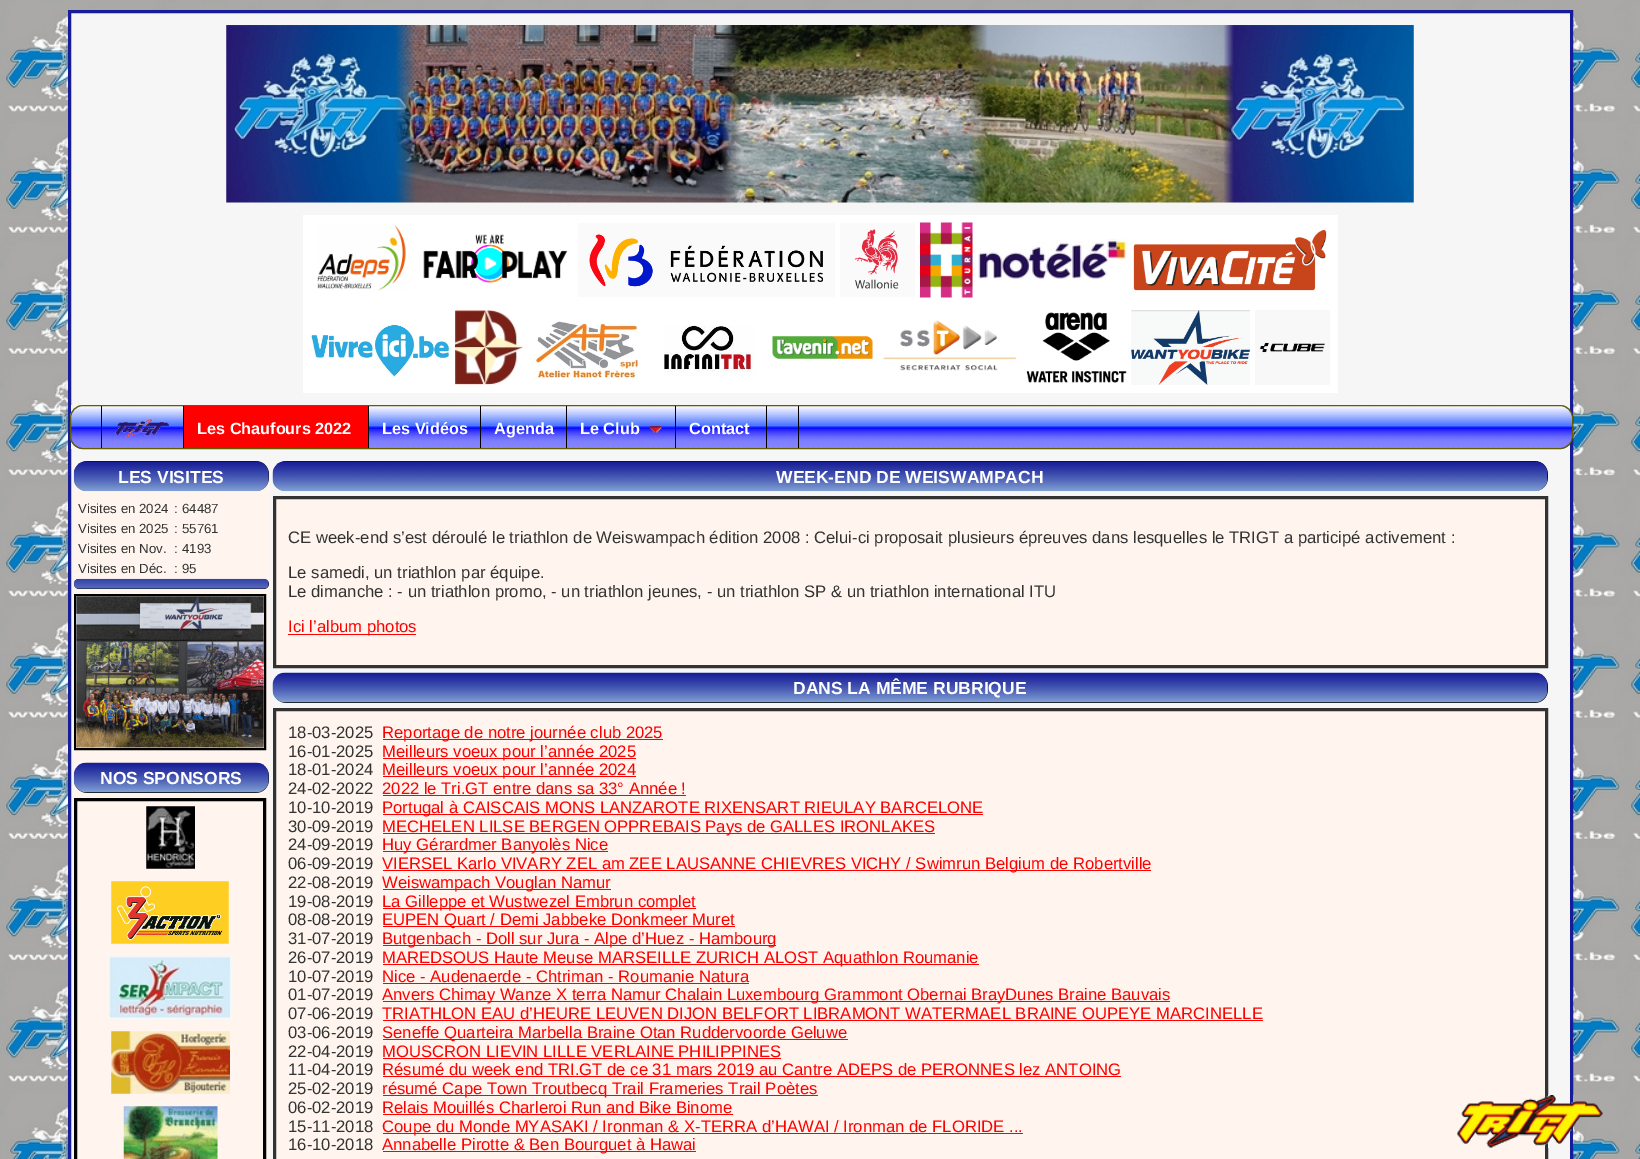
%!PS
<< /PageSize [1640 1159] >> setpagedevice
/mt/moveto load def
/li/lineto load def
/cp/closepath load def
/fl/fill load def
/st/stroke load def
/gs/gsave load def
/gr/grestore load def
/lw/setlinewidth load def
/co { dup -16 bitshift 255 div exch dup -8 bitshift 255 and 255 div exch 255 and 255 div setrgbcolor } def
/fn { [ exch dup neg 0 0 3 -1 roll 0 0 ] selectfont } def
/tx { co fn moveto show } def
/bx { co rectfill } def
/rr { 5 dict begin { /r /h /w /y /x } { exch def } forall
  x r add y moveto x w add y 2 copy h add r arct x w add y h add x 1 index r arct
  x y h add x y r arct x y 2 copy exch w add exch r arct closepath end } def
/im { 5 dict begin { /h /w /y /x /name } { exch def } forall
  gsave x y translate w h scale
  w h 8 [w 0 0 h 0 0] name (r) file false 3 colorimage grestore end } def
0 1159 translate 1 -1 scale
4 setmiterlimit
0 0 1640 1159 16#FFFFFF bx
(media/1.raw) 0 0 1640 1159 im
16#F6F6F6 co
69.5 11.5 mt 1571.5 11.5 li 1571.5 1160.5 li 69.5 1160.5 li cp gs fl gr
16#171D98 co
3 lw
st
(media/2.raw) 226 25 1188 178 im
303 215 1035 178 16#FFFFFF bx
(media/3.raw) 317 225 89 66 im
(media/4.raw) 423 234 145 49 im
(media/5.raw) 578 223 257 74 im
(media/6.raw) 840 223 75 74 im
(media/7.raw) 920 222 53 76 im
(media/8.raw) 978 239 150 41 im
(media/9.raw) 1133 229 194 62 im
(media/10.raw) 310 324 140 53 im
(media/11.raw) 455 310 68 75 im
(media/12.raw) 535 321 103 58 im
(media/13.raw) 664 325 91 52 im
(media/14.raw) 772 336 101 23 im
(media/15.raw) 883 320 134 51 im
(media/16.raw) 1026 312 101 71 im
(media/17.raw) 1131 310 119 75 im
(media/18.raw) 1255 310 75 75 im
(media/19.raw) 70 405 1503 44 im
16#625E00 co
1 lw
70.5 405.5 1502 43 12.5 rr st
101 406 1 42 16#000000 bx
183 406 1 42 16#000000 bx
(media/20.raw) 115 418 55 20 im
368 406 1 42 16#000000 bx
184 406 184 42 16#FF0000 bx
480 406 1 42 16#000000 bx
566 406 1 42 16#000000 bx
675 406 1 42 16#000000 bx
(media/21.raw) 649 426 13 7 im
766 406 1 42 16#000000 bx
798 406 1 42 16#000000 bx
74 461 195 698 16#FFF5EE bx
16#000000 co
74 461 195 30 13 rr fl
(media/22.raw) 73 461 196 31 im
74 579 195 10 5 rr fl
(media/23.raw) 73 578 196 11 im
3 lw
75.5 595.5 189 153 rectstroke
76 596 188 152 16#FFFFFF bx
(media/24.raw) 76 596 188 152 im
16#000000 co
74 763 195 30 13 rr fl
(media/25.raw) 73 762 196 31 im
75.5 799.5 189 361 rectstroke
(media/26.raw) 146 806 49 63 im
(media/27.raw) 111 881 118 63 im
(media/28.raw) 108 956 124 63 im
(media/29.raw) 111 1031 119 63 im
(media/30.raw) 123 1106 95 53 im
273 461 1275 30 13 rr fl
(media/31.raw) 272 461 1276 31 im
16#FFF5EE co
274.5 497.5 mt 1546.5 497.5 li 1546.5 666.5 li 274.5 666.5 li cp gs fl gr
16#333333 co
st
288 634 128 1 16#FF0000 bx
16#000000 co
273 673 1275 30 13 rr fl
(media/32.raw) 272 672 1276 31 im
16#FFF5EE co
274.5 709.5 mt 1546.5 709.5 li 1546.5 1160.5 li 274.5 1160.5 li cp gs fl gr
16#333333 co
st
383 739 280 1 16#FF0000 bx
383 758 253 1 16#FF0000 bx
383 776 253 1 16#FF0000 bx
383 795 303 1 16#FF0000 bx
383 814 600 1 16#FF0000 bx
383 833 552 1 16#FF0000 bx
383 851 225 1 16#FF0000 bx
383 870 768 1 16#FF0000 bx
383 889 228 1 16#FF0000 bx
383 908 313 1 16#FF0000 bx
383 926 352 1 16#FF0000 bx
383 945 393 1 16#FF0000 bx
383 964 596 1 16#FF0000 bx
383 983 366 1 16#FF0000 bx
383 1001 787 1 16#FF0000 bx
383 1020 880 1 16#FF0000 bx
383 1039 465 1 16#FF0000 bx
383 1058 398 1 16#FF0000 bx
383 1076 738 1 16#FF0000 bx
383 1095 435 1 16#FF0000 bx
383 1114 350 1 16#FF0000 bx
383 1133 640 1 16#FF0000 bx
383 1151 313 1 16#FF0000 bx
(media/33.raw) 1457 1095 146 53 im
(Les Chaufours 2022) 197 434 /LiberationSans-Bold 16.25 16#FFFFFF tx
(Les Vidéos) 382 434 /LiberationSans-Bold 16.25 16#FFFFFF tx
(Agenda) 494 434 /LiberationSans-Bold 16.25 16#FFFFFF tx
(Le Club) 580 434 /LiberationSans-Bold 16.25 16#FFFFFF tx
(Contact) 689 434 /LiberationSans-Bold 16.25 16#FFFFFF tx
(LES VISITES) 118 483 /LiberationSans-Bold 17.5 16#FFFFFF tx
(Visites en 2024) 78 513 /LiberationSans-Regular 13.25 16#333333 tx
(:) 174 513 /LiberationSans-Regular 13.25 16#333333 tx
(64487) 182 513 /LiberationSans-Regular 13.25 16#333333 tx
(Visites en 2025) 78 533 /LiberationSans-Regular 13.25 16#333333 tx
(:) 174 533 /LiberationSans-Regular 13.25 16#333333 tx
(55761) 182 533 /LiberationSans-Regular 13.25 16#333333 tx
(Visites en Nov.) 78 553 /LiberationSans-Regular 13.25 16#333333 tx
(:) 174 553 /LiberationSans-Regular 13.25 16#333333 tx
(4193) 182 553 /LiberationSans-Regular 13.25 16#333333 tx
(Visites en Déc.) 78 573 /LiberationSans-Regular 13.25 16#333333 tx
(:) 174 573 /LiberationSans-Regular 13.25 16#333333 tx
(95) 182 573 /LiberationSans-Regular 13.25 16#333333 tx
(NOS SPONSORS) 100 784 /LiberationSans-Bold 17.5 16#FFFFFF tx
(WEEK-END DE WEISWAMPACH) 776 483 /LiberationSans-Bold 17.5 16#FFFFFF tx
(CE week-end s’est déroulé le triathlon de Weiswampach édition 2008 : Celui-ci proposait plusieurs épreuves dans lesquelles le TRIGT a participé activement :) 288 543 /LiberationSans-Regular 16.67 16#333333 tx
(Le samedi, un triathlon par équipe.) 288 578 /LiberationSans-Regular 16.67 16#333333 tx
(Le dimanche : - un triathlon promo, - un triathlon jeunes, - un triathlon SP & un triathlon international ITU) 288 597 /LiberationSans-Regular 16.67 16#333333 tx
(Ici l’album photos) 288 632 /LiberationSans-Regular 16.67 16#FF0000 tx
(DANS LA MÊME RUBRIQUE) 793 694 /LiberationSans-Bold 17.5 16#FFFFFF tx
(18-03-2025) 288 738 /LiberationSans-Regular 16.67 16#333333 tx
(Reportage de notre journée club 2025) 382 738 /LiberationSans-Regular 16.67 16#FF0000 tx
(16-01-2025) 288 757 /LiberationSans-Regular 16.67 16#333333 tx
(Meilleurs voeux pour l’année 2025) 382 757 /LiberationSans-Regular 16.67 16#FF0000 tx
(18-01-2024) 288 775 /LiberationSans-Regular 16.67 16#333333 tx
(Meilleurs voeux pour l’année 2024) 382 775 /LiberationSans-Regular 16.67 16#FF0000 tx
(24-02-2022) 288 794 /LiberationSans-Regular 16.67 16#333333 tx
(2022 le Tri.GT entre dans sa 33° Année !) 382 794 /LiberationSans-Regular 16.67 16#FF0000 tx
(10-10-2019) 288 813 /LiberationSans-Regular 16.67 16#333333 tx
(Portugal à CAISCAIS MONS LANZAROTE RIXENSART RIEULAY BARCELONE) 382 813 /LiberationSans-Regular 16.67 16#FF0000 tx
(30-09-2019) 288 832 /LiberationSans-Regular 16.67 16#333333 tx
(MECHELEN LILSE BERGEN OPPREBAIS Pays de GALLES IRONLAKES) 382 832 /LiberationSans-Regular 16.67 16#FF0000 tx
(24-09-2019) 288 850 /LiberationSans-Regular 16.67 16#333333 tx
(Huy Gérardmer Banyolès Nice) 382 850 /LiberationSans-Regular 16.67 16#FF0000 tx
(06-09-2019) 288 869 /LiberationSans-Regular 16.67 16#333333 tx
(VIERSEL Karlo VIVARY ZEL am ZEE LAUSANNE CHIEVRES VICHY / Swimrun Belgium de Robertville) 382 869 /LiberationSans-Regular 16.67 16#FF0000 tx
(22-08-2019) 288 888 /LiberationSans-Regular 16.67 16#333333 tx
(Weiswampach Vouglan Namur) 382 888 /LiberationSans-Regular 16.67 16#FF0000 tx
(19-08-2019) 288 907 /LiberationSans-Regular 16.67 16#333333 tx
(La Gilleppe et Wustwezel Embrun complet) 382 907 /LiberationSans-Regular 16.67 16#FF0000 tx
(08-08-2019) 288 925 /LiberationSans-Regular 16.67 16#333333 tx
(EUPEN Quart / Demi Jabbeke Donkmeer Muret) 382 925 /LiberationSans-Regular 16.67 16#FF0000 tx
(31-07-2019) 288 944 /LiberationSans-Regular 16.67 16#333333 tx
(Butgenbach - Doll sur Jura - Alpe d’Huez - Hambourg) 382 944 /LiberationSans-Regular 16.67 16#FF0000 tx
(26-07-2019) 288 963 /LiberationSans-Regular 16.67 16#333333 tx
(MAREDSOUS Haute Meuse MARSEILLE ZURICH ALOST Aquathlon Roumanie) 382 963 /LiberationSans-Regular 16.67 16#FF0000 tx
(10-07-2019) 288 982 /LiberationSans-Regular 16.67 16#333333 tx
(Nice - Audenaerde - Chtriman - Roumanie Natura) 382 982 /LiberationSans-Regular 16.67 16#FF0000 tx
(01-07-2019) 288 1000 /LiberationSans-Regular 16.67 16#333333 tx
(Anvers Chimay Wanze X terra Namur Chalain Luxembourg Grammont Obernai BrayDunes Braine Bauvais) 382 1000 /LiberationSans-Regular 16.67 16#FF0000 tx
(07-06-2019) 288 1019 /LiberationSans-Regular 16.67 16#333333 tx
(TRIATHLON EAU d’HEURE LEUVEN DIJON BELFORT LIBRAMONT WATERMAEL BRAINE OUPEYE MARCINELLE) 382 1019 /LiberationSans-Regular 16.67 16#FF0000 tx
(03-06-2019) 288 1038 /LiberationSans-Regular 16.67 16#333333 tx
(Seneffe Quarteira Marbella Braine Otan Ruddervoorde Geluwe) 382 1038 /LiberationSans-Regular 16.67 16#FF0000 tx
(22-04-2019) 288 1057 /LiberationSans-Regular 16.67 16#333333 tx
(MOUSCRON LIEVIN LILLE VERLAINE PHILIPPINES) 382 1057 /LiberationSans-Regular 16.67 16#FF0000 tx
(11-04-2019) 288 1075 /LiberationSans-Regular 16.67 16#333333 tx
(Résumé du week end TRI.GT de ce 31 mars 2019 au Cantre ADEPS de PERONNES lez ANTOING) 382 1075 /LiberationSans-Regular 16.67 16#FF0000 tx
(25-02-2019) 288 1094 /LiberationSans-Regular 16.67 16#333333 tx
(résumé Cape Town Troutbecq Trail Frameries Trail Poètes) 382 1094 /LiberationSans-Regular 16.67 16#FF0000 tx
(06-02-2019) 288 1113 /LiberationSans-Regular 16.67 16#333333 tx
(Relais Mouillés Charleroi Run and Bike Binome) 382 1113 /LiberationSans-Regular 16.67 16#FF0000 tx
(15-11-2018) 288 1132 /LiberationSans-Regular 16.67 16#333333 tx
(Coupe du Monde MYASAKI / Ironman & X-TERRA d’HAWAI / Ironman de FLORIDE ...) 382 1132 /LiberationSans-Regular 16.67 16#FF0000 tx
(16-10-2018) 288 1150 /LiberationSans-Regular 16.67 16#333333 tx
(Annabelle Pirotte & Ben Bourguet à Hawai) 382 1150 /LiberationSans-Regular 16.67 16#FF0000 tx
showpage
